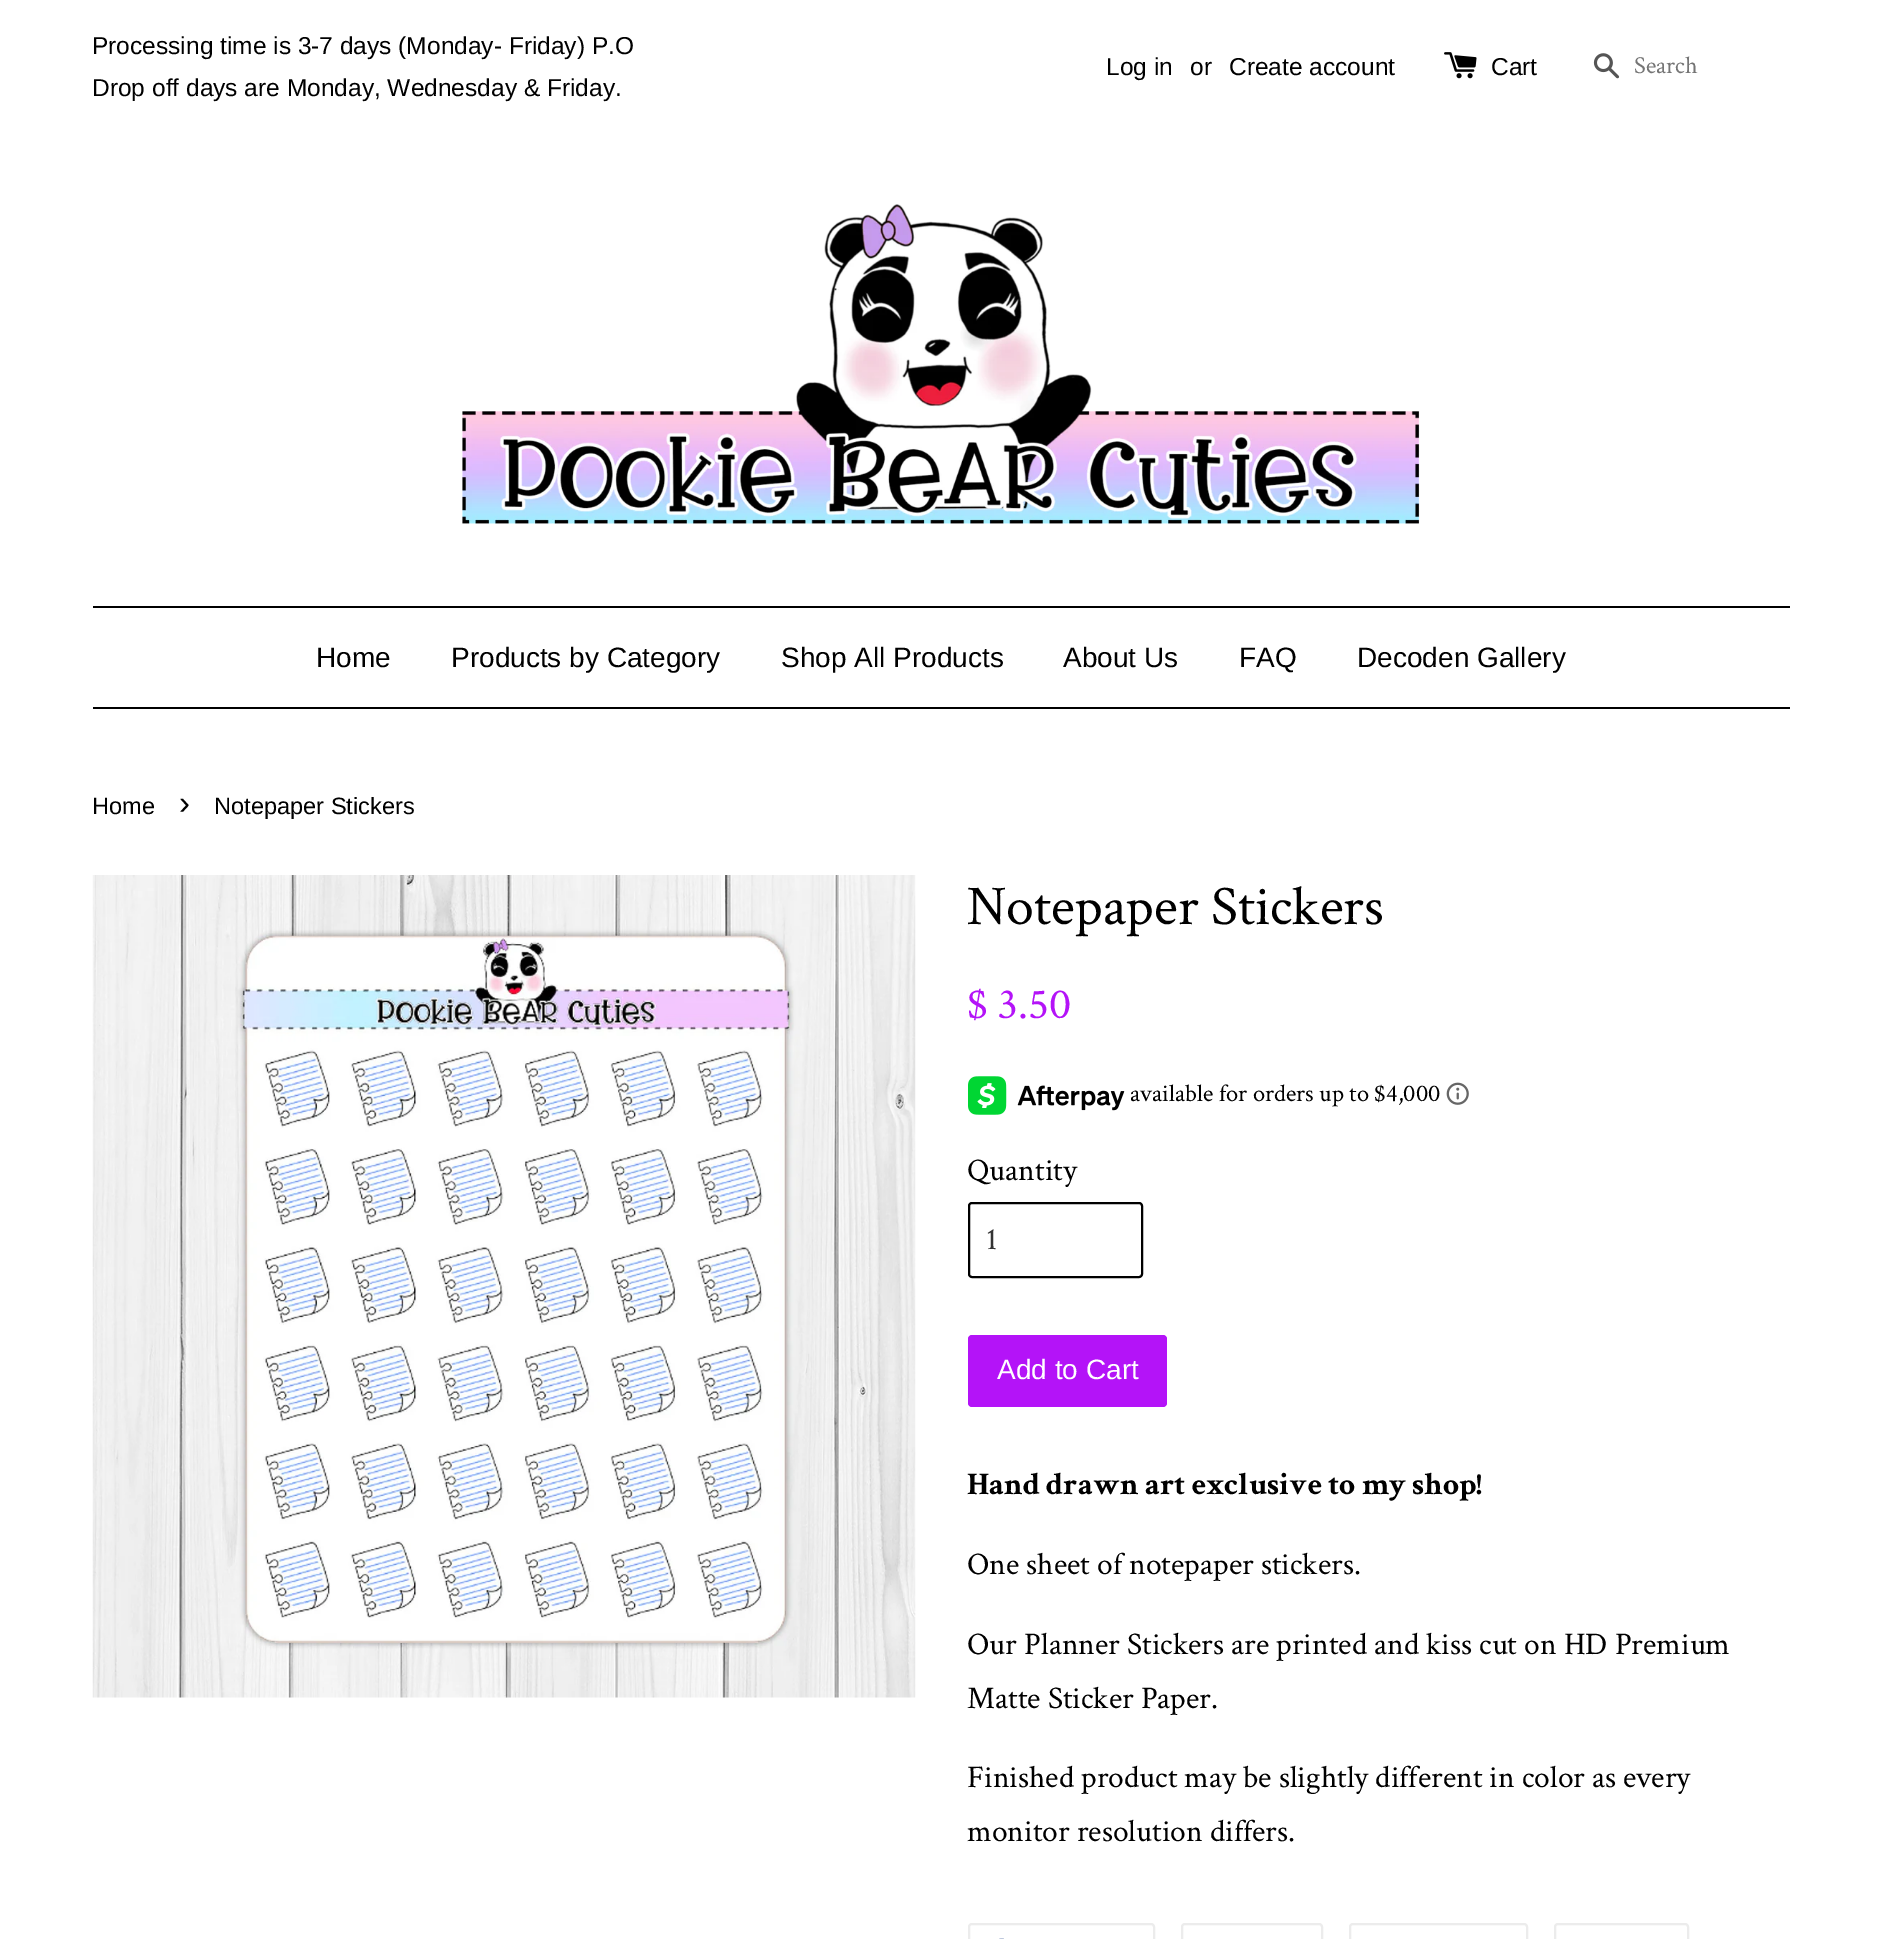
%!PS
<< /PageSize [1880 1939] >> setpagedevice
/fl/fill load def
/st/stroke load def
/gs/gsave load def
/gr/grestore load def
/lw/setlinewidth load def
/co { dup -16 bitshift 255 div exch dup -8 bitshift 255 and 255 div exch 255 and 255 div setrgbcolor } def
/fn { [ exch dup neg 0 0 3 -1 roll 0 0 ] selectfont } def
/tx { co fn moveto show } def
/bx { co rectfill } def
/rr { 5 dict begin { /r /h /w /y /x } { exch def } forall
  x r add y moveto x w add y 2 copy h add r arct x w add y h add x 1 index r arct
  x y h add x y r arct x y 2 copy exch w add exch r arct closepath end } def
/im { 5 dict begin { /h /w /y /x /name } { exch def } forall
  gsave x y translate w h scale
  w h 8 [w 0 0 h 0 0] name (r) file false 3 colorimage grestore end } def
0 1939 translate 1 -1 scale
4 setmiterlimit
0 0 1880 1939 16#FFFFFF bx
(media/1.raw) 1444 52 33 27 im
(media/2.raw) 1593 53 27 26 im
(media/3.raw) 462 204 958 320 im
93 606 1697 2 16#000000 bx
93 707 1697 2 16#000000 bx
(media/4.raw) 92 875 824 823 im
(media/5.raw) 968 1076 157 39 im
(media/6.raw) 1446 1082 23 23 im
2 lw
969 1203 173 74 3 rr st
16#B413F8 co
968 1335 199 72 4 rr fl
16#ECECEC co
969 1924 185 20 3 rr st
(media/7.raw) 999 1938 5 1 im
1182 1924 140 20 3 rr st
1350 1924 177 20 3 rr st
1555 1924 133 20 3 rr st
(Processing time is 3-7 days \(Monday- Friday\) P.O) 92 54 /LiberationSans-Regular 24.5 16#000000 tx
(Drop off days are Monday, Wednesday & Friday.) 92 96 /LiberationSans-Regular 24.5 16#000000 tx
(Log in) 1106 75 /LiberationSans-Regular 24.5 16#000000 tx
(or) 1190 75 /LiberationSans-Regular 24.5 16#000000 tx
(Create account) 1229 75 /LiberationSans-Regular 24.5 16#000000 tx
(Cart) 1491 75 /LiberationSans-Regular 24.5 16#000000 tx
gs
1635 51 147 31 rectclip
(Search) 1634 73 /CrimsonText-Regular 24.5 16#757575 tx
gr
(Home) 316 667 /LiberationSans-Regular 28 16#000000 tx
(Products by Category) 451 667 /LiberationSans-Regular 28 16#000000 tx
(Shop All Products) 781 667 /LiberationSans-Regular 28 16#000000 tx
(About Us) 1063 667 /LiberationSans-Regular 28 16#000000 tx
(FAQ) 1239 667 /LiberationSans-Regular 28 16#000000 tx
(Decoden Gallery) 1357 667 /LiberationSans-Regular 28 16#000000 tx
(Home) 92 814 /LiberationSans-Regular 23.6 16#000000 tx
(›) 179 814 /LiberationSans-Regular 33 16#000000 tx
(Notepaper Stickers) 214 814 /LiberationSans-Regular 23.6 16#000000 tx
(Notepaper Stickers) 967 924 /CrimsonText-Regular 56 16#000000 tx
($ 3.50) 967 1018 /CrimsonText-Regular 44 16#B413F8 tx
(available for orders up to $4,000) 1130 1101 /CrimsonText-Regular 24.5 16#000000 tx
(Quantity) 967 1180 /CrimsonText-Regular 31.5 16#000000 tx
(1) 986 1249 /CrimsonText-Regular 31.5 16#333333 tx
(Add to Cart) 997 1379 /LiberationSans-Regular 28 16#FFFFFF tx
(Hand drawn art exclusive to my shop!) 967 1494 /CrimsonText-Bold 31.5 16#000000 tx
(One sheet of notepaper stickers.) 967 1574 /CrimsonText-Regular 31.5 16#000000 tx
(Our Planner Stickers are printed and kiss cut on HD Premium) 967 1654 /CrimsonText-Regular 31.5 16#000000 tx
(Matte Sticker Paper.) 967 1708 /CrimsonText-Regular 31.5 16#000000 tx
(Finished product may be slightly different in color as every) 967 1787 /CrimsonText-Regular 31.5 16#000000 tx
(monitor resolution differs.) 967 1841 /CrimsonText-Regular 31.5 16#000000 tx
showpage
